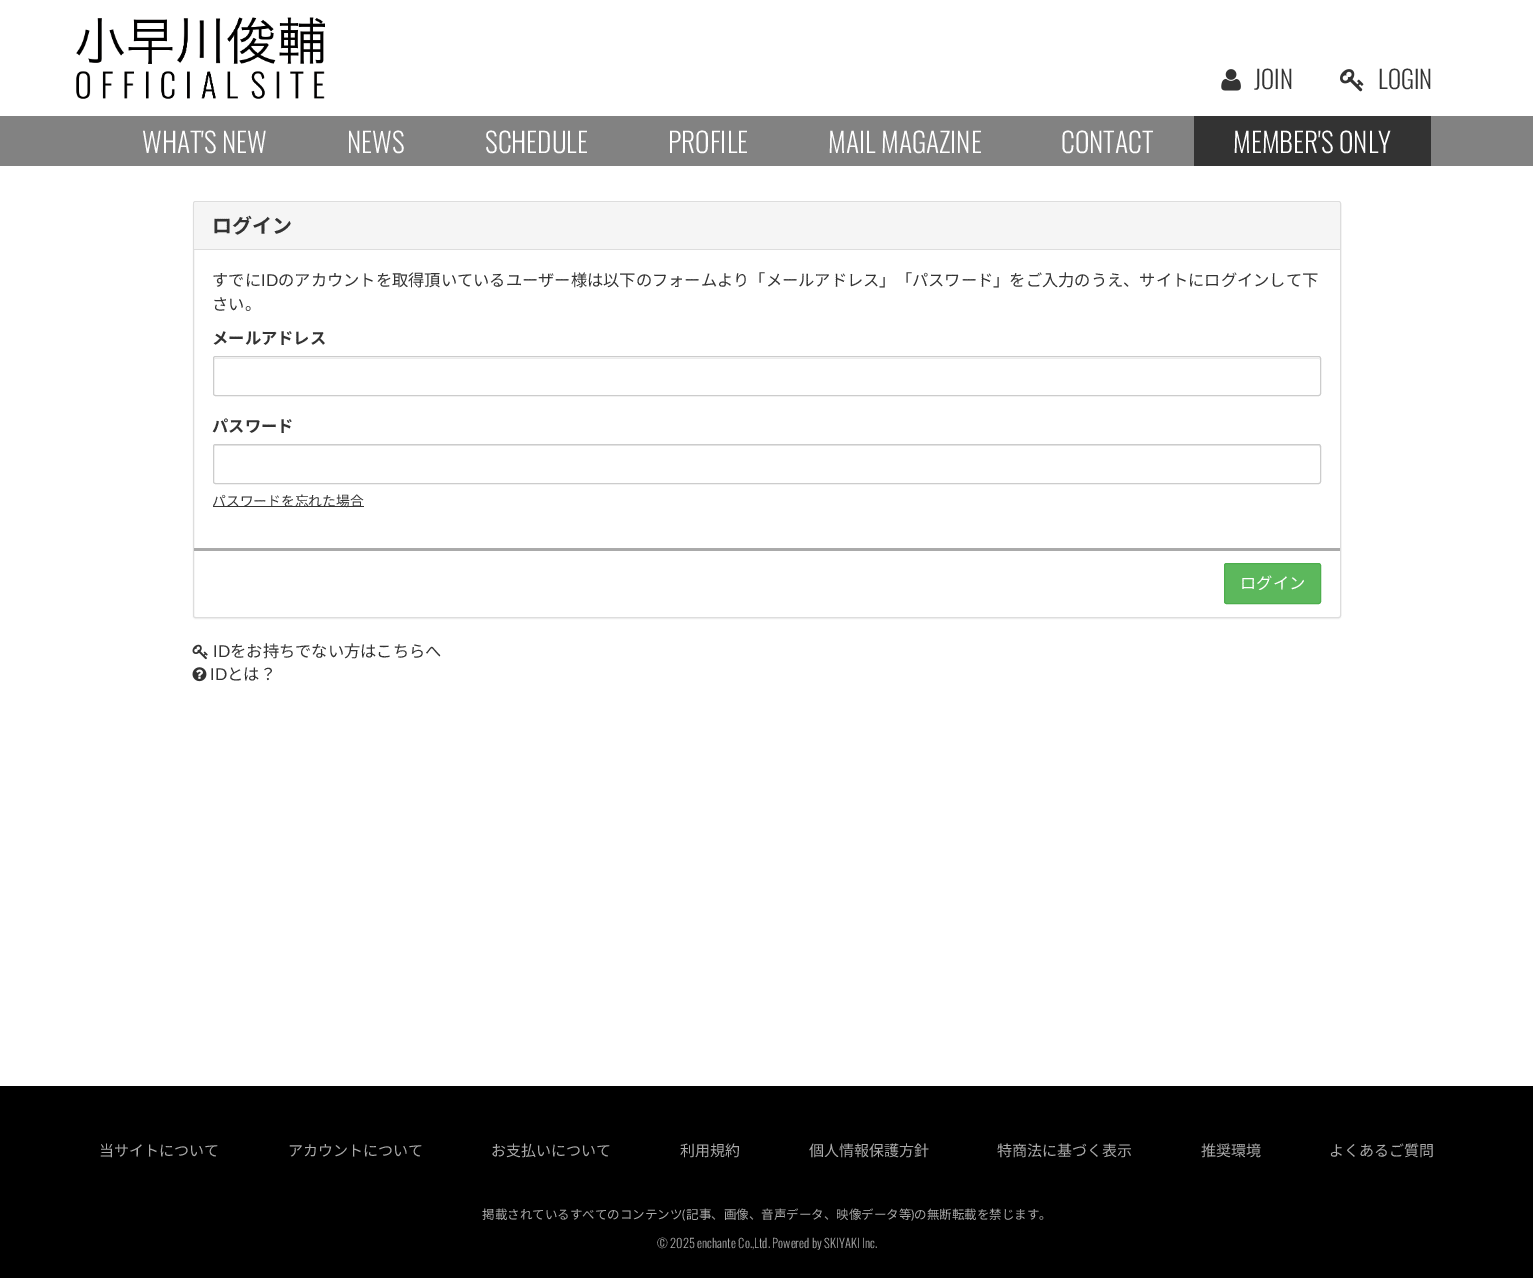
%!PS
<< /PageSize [1533 1278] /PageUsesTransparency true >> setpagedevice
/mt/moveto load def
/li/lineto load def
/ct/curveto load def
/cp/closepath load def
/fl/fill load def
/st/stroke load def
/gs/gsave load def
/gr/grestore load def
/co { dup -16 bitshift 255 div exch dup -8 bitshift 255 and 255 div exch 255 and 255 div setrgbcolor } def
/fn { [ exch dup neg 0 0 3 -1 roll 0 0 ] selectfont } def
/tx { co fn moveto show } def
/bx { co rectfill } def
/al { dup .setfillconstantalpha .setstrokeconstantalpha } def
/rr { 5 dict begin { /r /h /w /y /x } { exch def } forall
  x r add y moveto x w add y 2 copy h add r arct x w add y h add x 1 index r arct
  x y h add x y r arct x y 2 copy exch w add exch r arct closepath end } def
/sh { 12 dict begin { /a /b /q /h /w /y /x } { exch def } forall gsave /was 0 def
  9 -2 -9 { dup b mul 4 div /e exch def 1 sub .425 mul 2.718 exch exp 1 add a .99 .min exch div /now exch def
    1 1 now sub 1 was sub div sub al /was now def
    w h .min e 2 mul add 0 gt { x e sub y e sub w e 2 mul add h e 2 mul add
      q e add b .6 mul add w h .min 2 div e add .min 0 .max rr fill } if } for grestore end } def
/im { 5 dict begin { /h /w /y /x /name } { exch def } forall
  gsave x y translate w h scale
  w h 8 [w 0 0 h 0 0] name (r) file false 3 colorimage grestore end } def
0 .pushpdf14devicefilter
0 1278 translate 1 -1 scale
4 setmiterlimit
0 0 1533 1278 16#FFFFFF bx
(media/1.raw) 76 17 249 82 im
(media/2.raw) 1221 69 20 22 im
(media/3.raw) 1340 69 24 23 im
0 116 1533 50 16#828282 bx
1194 116 237 50 16#333333 bx
16#000000 co
193 203 1148 416 2.5 .5 .05 sh
16#FFFFFF co
193.5 201.5 1147 416 2 rr gs fl gr
16#DDDDDD co
st
16#F5F5F5 co
195 203 mt 1339 203 li 1339.5 203 1340 203.5 1340 204 ct 1340 250 li 194 250 li 194 204 li 194 203.5 194.5 203 195 203 ct cp fl
194 249 1146 1 16#DDDDDD bx
16#ECECEC co
215 359 mt 1319 359 li 1320 360 li 1320 359 li 1319 358 li 215 358 li 214 359 li 214 360 li 214 359 214 359 215 359 ct cp fl
16#CCCCCC co
213.5 356.5 1107 39 2 rr st
16#ECECEC co
215 446 mt 1319 446 li 1320 448 li 1320 445 li 1319 445 li 215 445 li 214 446 li 214 448 li 214 447 214 446 215 446 ct cp fl
16#CCCCCC co
213.5 444.5 1107 39 2 rr st
213 506 151 1 16#333333 bx
194 548 1146 3 16#AAAAAA bx
16#5CB85C co
1224.5 563.5 96 40 2 rr gs fl gr
16#4CAE4C co
st
(media/4.raw) 192 644 16 16 im
(media/5.raw) 192 667 15 15 im
0 1086 1533 192 16#000000 bx
(JOIN) 1254 89 /Oswald-Light 25 16#333333 tx
(LOGIN) 1378 89 /Oswald-Light 25 16#333333 tx
(WHAT'S NEW) 142 153 /Oswald-Light 27.5 16#FFFFFF tx
(NEWS) 347 153 /Oswald-Light 27.5 16#FFFFFF tx
(SCHEDULE) 485 153 /Oswald-Light 27.5 16#FFFFFF tx
(PROFILE) 668 153 /Oswald-Light 27.5 16#FFFFFF tx
(MAIL MAGAZINE) 828 153 /Oswald-Light 27.5 16#FFFFFF tx
(CONTACT) 1061 153 /Oswald-Light 27.5 16#FFFFFF tx
(MEMBER'S ONLY) 1233 153 /Oswald-Light 27.5 16#FFFFFF tx
(ログイン) 212 233 /NotoSansJP-Bold 20 16#333333 tx
(すでに) 212 286 /NotoSansJP-Regular 16.25 16#333333 tx
(ID) 261 286 /Lato-Regular 16.25 16#333333 tx
(のアカウントを取得頂いているユーザー様は以下のフォームより「メールアドレス」「パスワード」をご入力のうえ、サイトにログインして下) 278 286 /NotoSansJP-Regular 16.25 16#333333 tx
(さい。) 212 310 /NotoSansJP-Regular 16.25 16#333333 tx
(メールアドレス) 212 344 /NotoSansJP-Bold 16.25 16#333333 tx
(パスワード) 212 432 /NotoSansJP-Bold 16.25 16#333333 tx
(パスワードを忘れた場合) 212 506 /NotoSansJP-Regular 13.75 16#333333 tx
(ログイン) 1240 589 /NotoSansJP-Regular 16.25 16#FFFFFF tx
(ID) 213 657 /Lato-Regular 16.25 16#333333 tx
(をお持ちでない方はこちらへ) 230 657 /NotoSansJP-Regular 16.25 16#333333 tx
(ID) 210 680 /Lato-Regular 16.25 16#333333 tx
(とは？) 227 680 /NotoSansJP-Regular 16.25 16#333333 tx
(当サイトについて) 99 1156 /NotoSansJP-Regular 15 16#AAAAAA tx
(アカウントについて) 288 1156 /NotoSansJP-Regular 15 16#AAAAAA tx
(お支払いについて) 491 1156 /NotoSansJP-Regular 15 16#AAAAAA tx
(利用規約) 680 1156 /NotoSansJP-Regular 15 16#AAAAAA tx
(個人情報保護方針) 809 1156 /NotoSansJP-Regular 15 16#AAAAAA tx
(特商法に基づく表示) 997 1156 /NotoSansJP-Regular 15 16#AAAAAA tx
(推奨環境) 1201 1156 /NotoSansJP-Regular 15 16#AAAAAA tx
(よくあるご質問) 1329 1156 /NotoSansJP-Regular 15 16#AAAAAA tx
(掲載されているすべてのコンテンツ) 482 1219 /NotoSansJP-Regular 12.5 16#AAAAAA tx
(\() 682 1219 /Lato-Regular 12.5 16#AAAAAA tx
(記事、画像、音声データ、映像データ等) 686 1219 /NotoSansJP-Regular 12.5 16#AAAAAA tx
(\)) 911 1219 /Lato-Regular 12.5 16#AAAAAA tx
(の無断転載を禁じます。) 914 1219 /NotoSansJP-Regular 12.5 16#AAAAAA tx
(© 2025 enchante Co.,Ltd. Powered by SKIYAKI Inc.) 657 1248 /Oswald-Light 12.5 16#AAAAAA tx
.poppdf14devicefilter showpage
